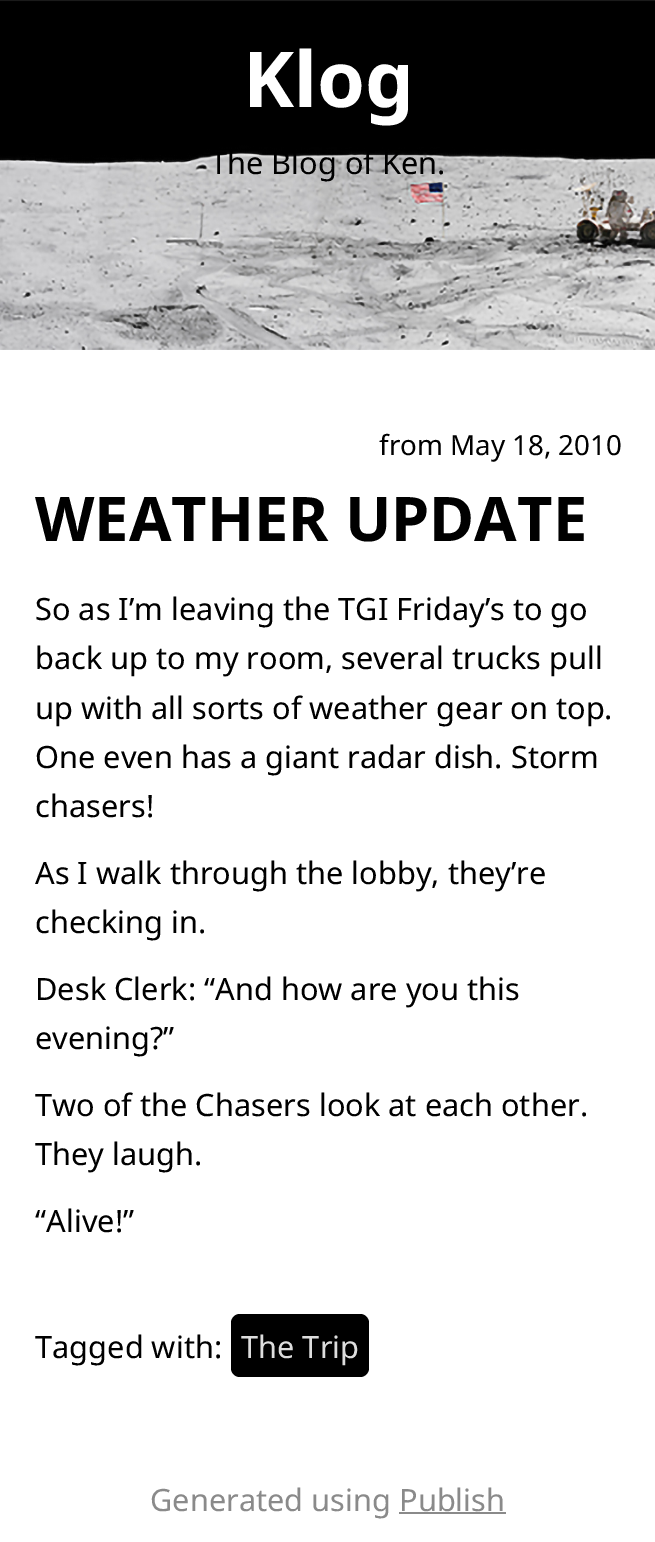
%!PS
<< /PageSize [655 1542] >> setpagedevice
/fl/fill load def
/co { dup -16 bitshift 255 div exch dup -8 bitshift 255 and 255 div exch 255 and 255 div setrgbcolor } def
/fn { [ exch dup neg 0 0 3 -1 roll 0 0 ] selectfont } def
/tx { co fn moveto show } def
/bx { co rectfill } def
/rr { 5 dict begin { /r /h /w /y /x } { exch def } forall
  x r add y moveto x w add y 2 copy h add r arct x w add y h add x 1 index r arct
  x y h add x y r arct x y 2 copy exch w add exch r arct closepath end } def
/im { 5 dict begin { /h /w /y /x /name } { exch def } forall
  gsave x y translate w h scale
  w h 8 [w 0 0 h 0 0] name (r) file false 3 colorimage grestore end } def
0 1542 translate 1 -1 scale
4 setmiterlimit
0 0 655 1542 16#FFFFFF bx
(media/1.raw) 0 0 655 350 im
16#000000 co
231 1314 138 63 9 rr fl
399 1512 107 2 16#8A8A8A bx
(Klog) 243 107 /NotoSans-Bold 77 16#FFFFFF tx
(The Blog of Ken.) 210 174 /NotoSans-Regular 30.75 16#000000 tx
(from May 18, 2010) 379 455 /NotoSans-Regular 27.75 16#000000 tx
(WEATHER UPDATE) 35 541 /NotoSans-Bold 61.5 16#000000 tx
(So as I’m leaving the TGI Friday’s to go) 35 620 /NotoSans-Regular 30.75 16#000000 tx
(back up to my room, several trucks pull) 35 669 /NotoSans-Regular 30.75 16#000000 tx
(up with all sorts of weather gear on top.) 35 719 /NotoSans-Regular 30.75 16#000000 tx
(One even has a giant radar dish. Storm) 35 768 /NotoSans-Regular 30.75 16#000000 tx
(chasers!) 35 817 /NotoSans-Regular 30.75 16#000000 tx
(As I walk through the lobby, they’re) 35 884 /NotoSans-Regular 30.75 16#000000 tx
(checking in.) 35 933 /NotoSans-Regular 30.75 16#000000 tx
(Desk Clerk: “And how are you this) 35 1000 /NotoSans-Regular 30.75 16#000000 tx
(evening?”) 35 1049 /NotoSans-Regular 30.75 16#000000 tx
(Two of the Chasers look at each other.) 35 1116 /NotoSans-Regular 30.75 16#000000 tx
(They laugh.) 35 1165 /NotoSans-Regular 30.75 16#000000 tx
(“Alive!”) 35 1232 /NotoSans-Regular 30.75 16#000000 tx
(Tagged with:) 35 1358 /NotoSans-Regular 30.75 16#000000 tx
(The Trip) 241 1358 /NotoSans-Regular 30.75 16#DDDDDD tx
(Generated using Publish) 150 1511 /NotoSans-Regular 30.75 16#8A8A8A tx
showpage
